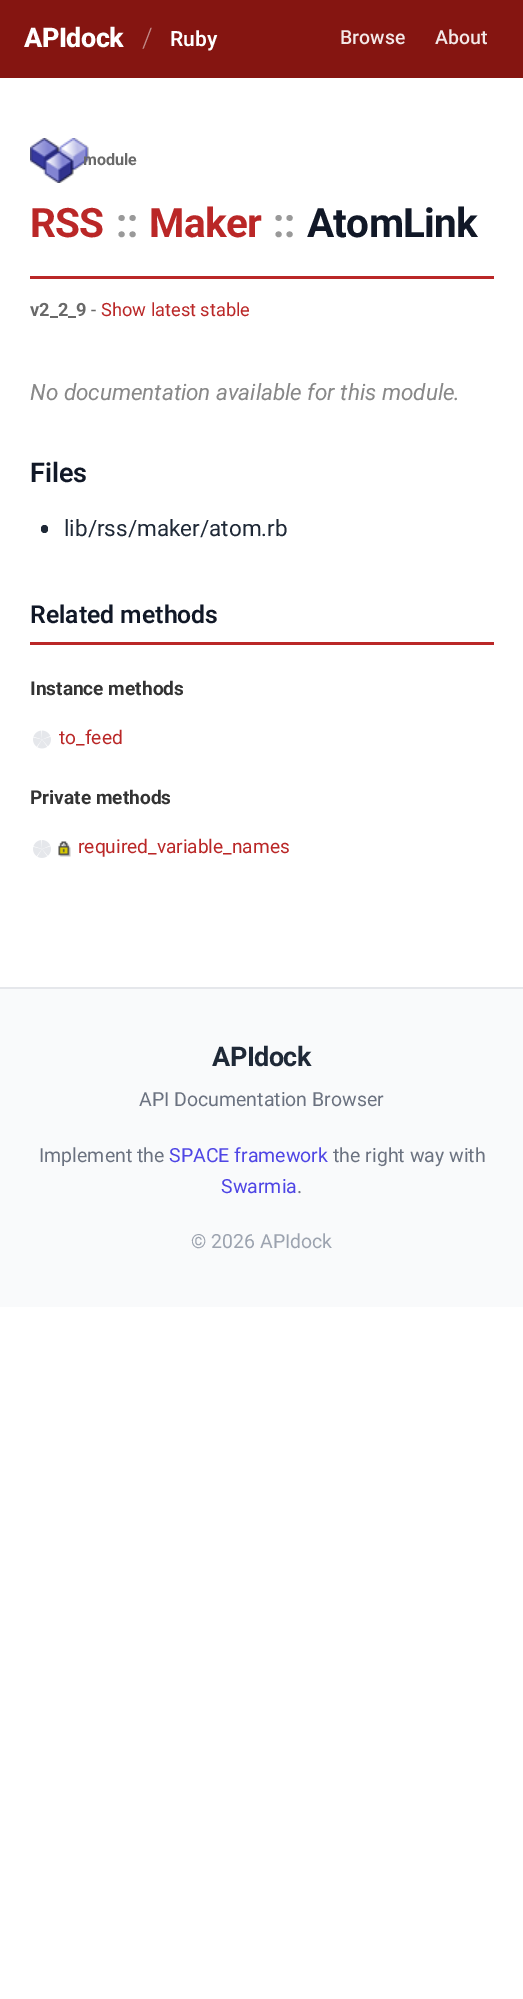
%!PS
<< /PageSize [523 1999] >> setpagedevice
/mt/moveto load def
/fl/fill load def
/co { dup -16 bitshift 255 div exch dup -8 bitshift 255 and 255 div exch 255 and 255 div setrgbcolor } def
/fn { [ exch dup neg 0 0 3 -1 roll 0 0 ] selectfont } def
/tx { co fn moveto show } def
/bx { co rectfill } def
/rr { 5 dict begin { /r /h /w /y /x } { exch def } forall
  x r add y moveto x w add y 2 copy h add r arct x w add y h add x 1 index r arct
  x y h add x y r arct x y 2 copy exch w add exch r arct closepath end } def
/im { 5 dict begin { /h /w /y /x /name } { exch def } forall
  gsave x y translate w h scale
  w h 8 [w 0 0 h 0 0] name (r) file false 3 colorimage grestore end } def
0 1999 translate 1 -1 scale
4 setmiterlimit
0 0 523 1999 16#FFFFFF bx
0 0 523 78 16#851511 bx
30 276 464 3 16#BA2727 bx
(media/1.raw) 30 138 59 45 im
16#1F2937 co
41 525 7 8 3.5 rr fl
30 642 464 3 16#BA2727 bx
(media/2.raw) 33 730 18 19 im
(media/3.raw) 33 840 18 18 im
(media/4.raw) 58 841 13 16 im
0 989 523 318 16#F9FAFB bx
0 987 523 2 16#E5E7EB bx
/Roboto-ExtraBold 27 fn
16#FFFFFF co
24 47 mt -.5 0 (APIdock) ashow
(/) 142 47 /Roboto-Light 27 16#C28A88 tx
(Ruby) 170 46 /Roboto-SemiBold 21 16#FFFFFF tx
(Browse) 340 44 /Roboto-Medium 19.5 16#F3E8E7 tx
(About) 435 44 /Roboto-Medium 19.5 16#F3E8E7 tx
(module) 83 165 /Roboto-Bold 16 16#696969 tx
/Roboto-Bold 40.5 fn
16#BA2727 co
30 237 mt -.75 0 (RSS) ashow
16#999999 co
116 237 mt -.75 0 (::) ashow
16#BA2727 co
149 237 mt -.75 0 (Maker) ashow
16#999999 co
273 237 mt -.75 0 (::) ashow
16#111827 co
307 237 mt -.75 0 (AtomLink) ashow
(v2_2_9) 30 316 /Roboto-Bold 18.25 16#696969 tx
(-) 91 316 /Roboto-Regular 18.25 16#696969 tx
(Show latest stable) 101 316 /Roboto-Regular 18.25 16#BA2727 tx
(No documentation available for this module.) 30 400 /Roboto-Italic 22.5 16#888888 tx
(Files) 30 482 /Roboto-SemiBold 27 16#111827 tx
(lib/rss/maker/atom.rb) 64 536 /Roboto-Regular 22.5 16#1F2937 tx
(Related methods) 30 623 /Roboto-SemiBold 24.75 16#111827 tx
(Instance methods) 30 695 /Roboto-Bold 19.1 16#333333 tx
(to_feed) 59 744 /Roboto-Regular 19.1 16#BA2727 tx
(Private methods) 30 804 /Roboto-Bold 19.1 16#333333 tx
(required_variable_names) 78 853 /Roboto-Regular 19.1 16#BA2727 tx
/Roboto-Bold 27 fn
16#1F2937 co
212 1066 mt -.5 0 (APIdock) ashow
(API Documentation Browser) 139 1106 /Roboto-Regular 19.5 16#6B7280 tx
(Implement the) 39 1162 /Roboto-Regular 19.5 16#6B7280 tx
(SPACE framework) 169 1162 /Roboto-Regular 19.5 16#4F46E5 tx
(the right way with) 333 1162 /Roboto-Regular 19.5 16#6B7280 tx
(Swarmia) 221 1193 /Roboto-Regular 19.5 16#4F46E5 tx
(.) 297 1193 /Roboto-Regular 19.5 16#6B7280 tx
(© 2026 APIdock) 191 1248 /Roboto-Regular 19.5 16#9CA3AF tx
showpage
